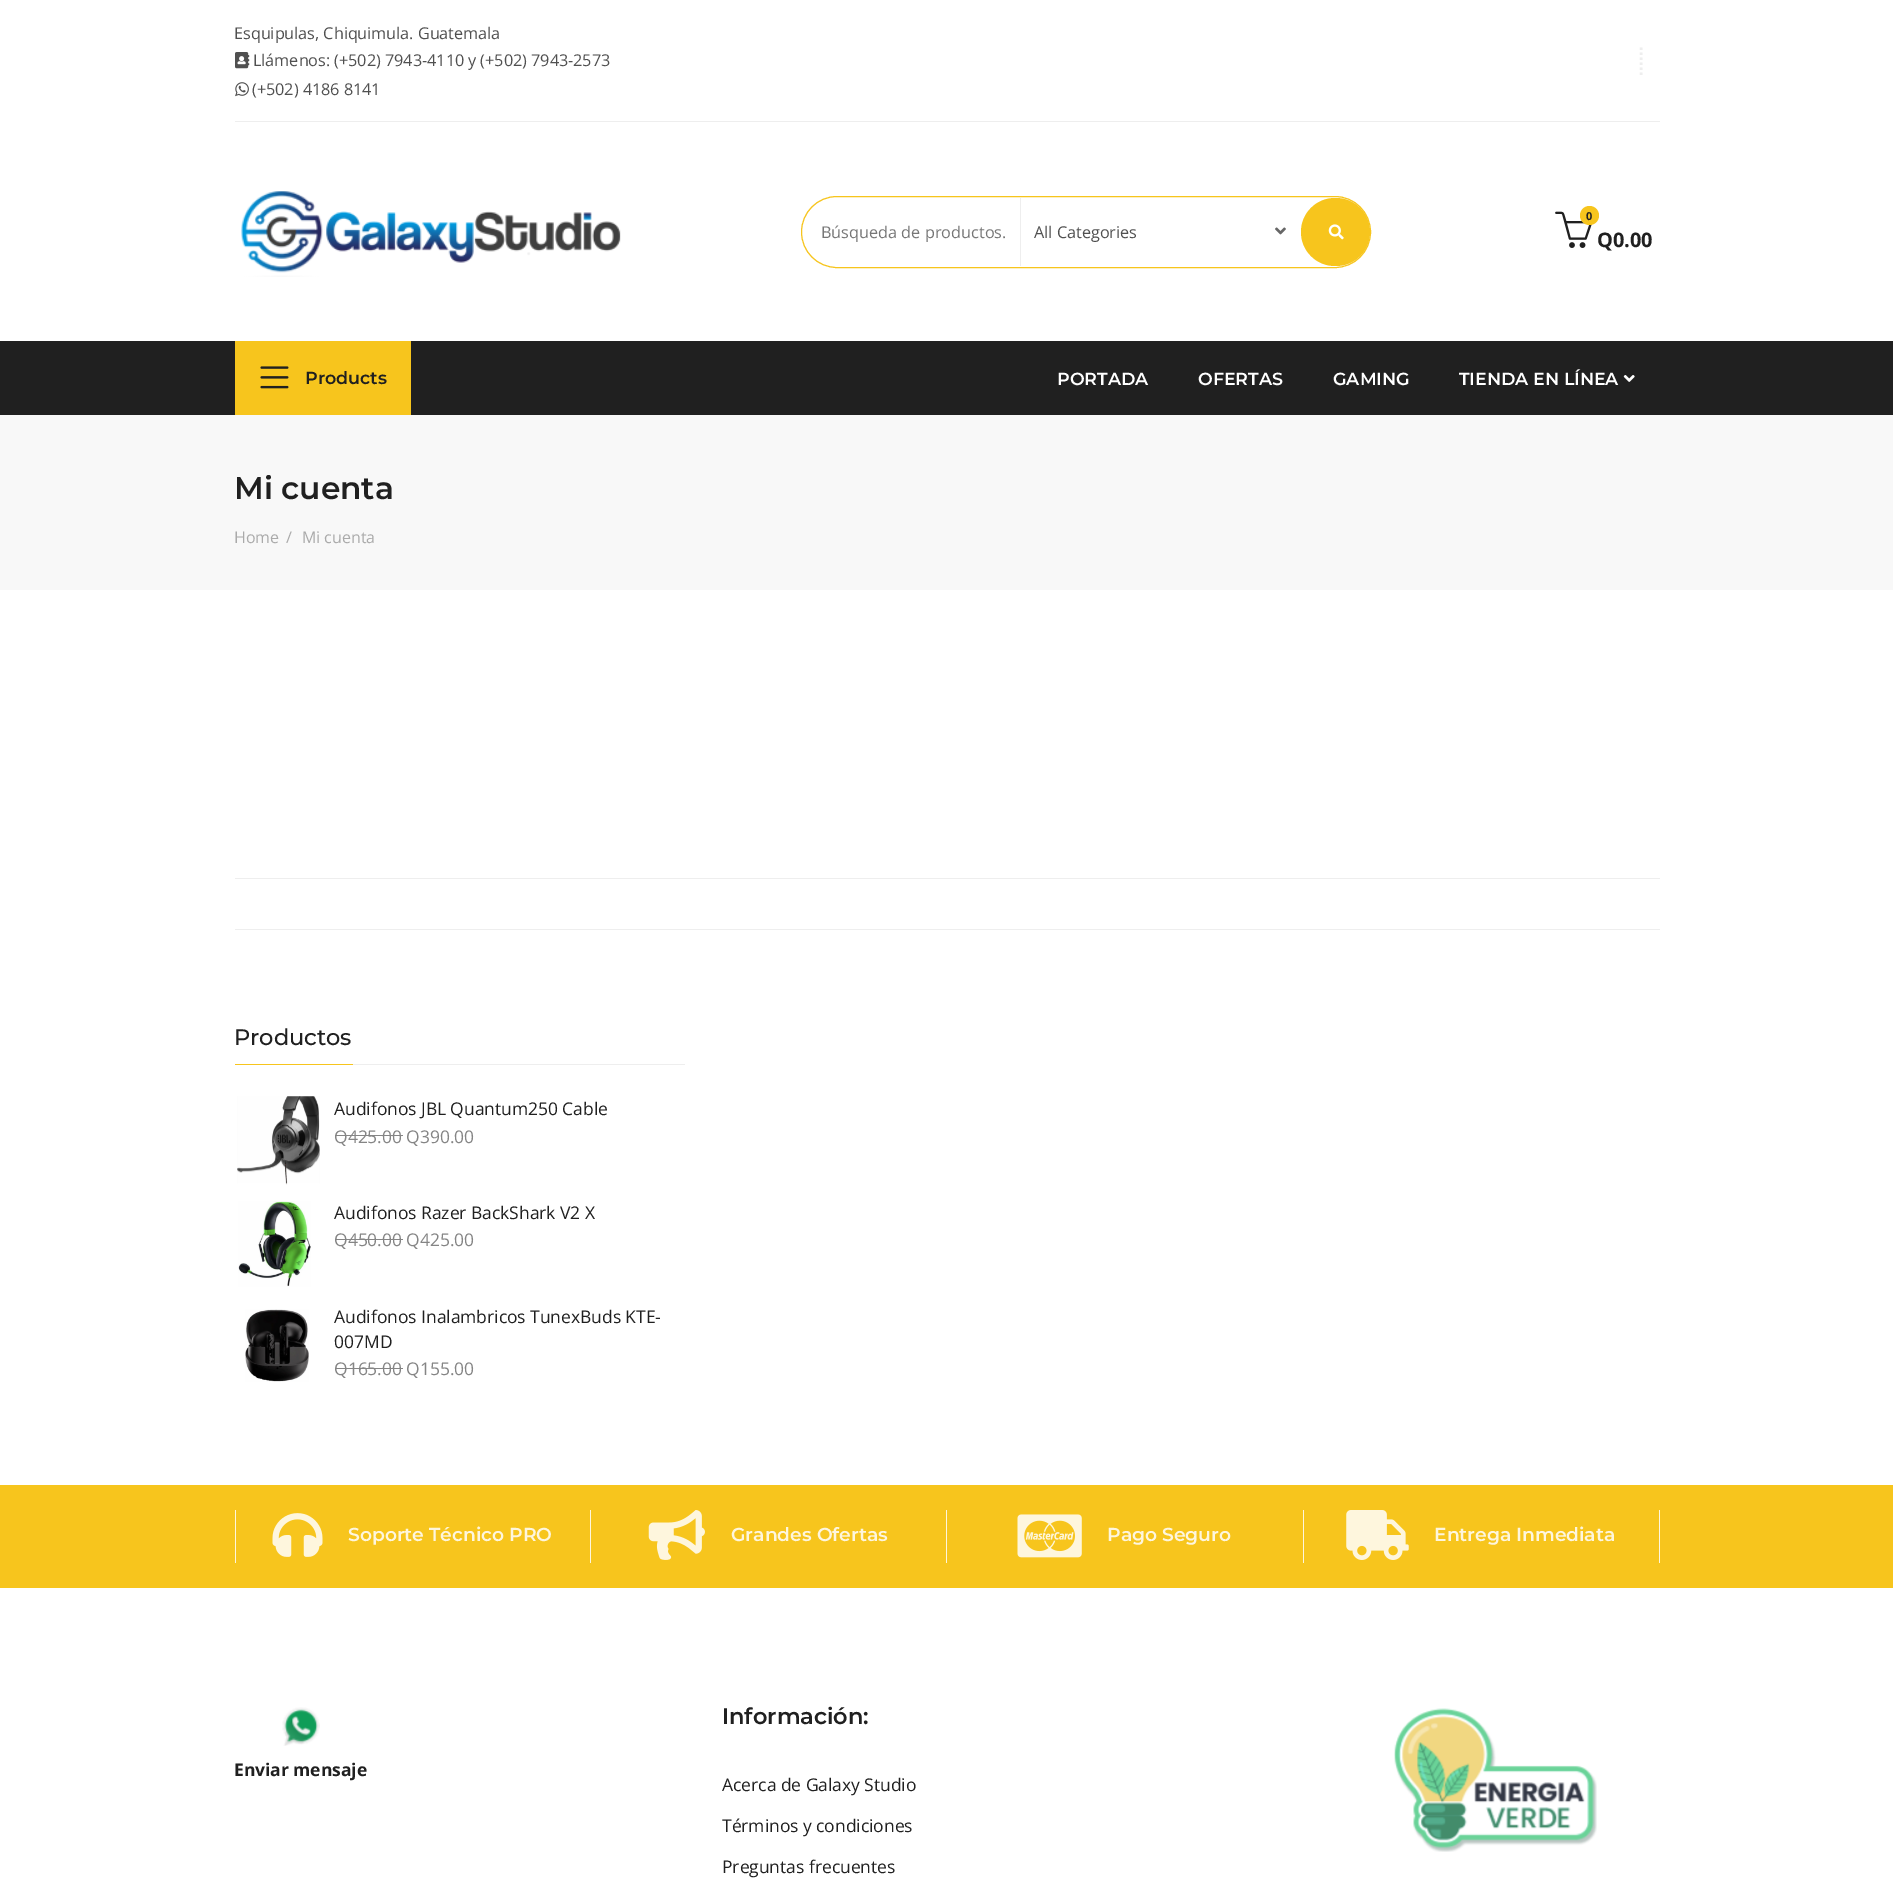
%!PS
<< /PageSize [1893 1885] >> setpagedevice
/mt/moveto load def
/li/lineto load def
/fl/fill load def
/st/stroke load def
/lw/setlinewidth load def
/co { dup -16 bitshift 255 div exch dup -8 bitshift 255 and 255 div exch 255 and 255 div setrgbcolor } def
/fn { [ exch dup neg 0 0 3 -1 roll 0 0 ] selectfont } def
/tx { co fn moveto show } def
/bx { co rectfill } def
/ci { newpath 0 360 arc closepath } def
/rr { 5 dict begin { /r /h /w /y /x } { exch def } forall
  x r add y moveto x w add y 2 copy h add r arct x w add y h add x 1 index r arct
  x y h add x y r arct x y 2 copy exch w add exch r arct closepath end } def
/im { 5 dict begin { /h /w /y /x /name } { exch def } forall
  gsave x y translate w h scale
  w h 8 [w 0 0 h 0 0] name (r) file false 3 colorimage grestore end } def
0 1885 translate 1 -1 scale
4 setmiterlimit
0 0 1893 1885 16#FFFFFF bx
235 121 1425 1 16#EEEEEE bx
(media/1.raw) 235 52 15 17 im
(media/2.raw) 235 82 14 15 im
2.5 lw
[2.5 2.5] 0 setdash
1641 47.5 mt 1641 75 li st
(media/3.raw) 241 191 380 86 im
16#F7C51D co
1 lw
[] 0 setdash
801.5 196.5 569 71 35.5 rr st
1020 198 1 68 16#EEEEEE bx
(media/4.raw) 1275 227 11 8 im
16#F7C51D co
1301 198 69 68 34 rr fl
(media/5.raw) 1328 224 16 16 im
(media/6.raw) 1555 211 37 37 im
1589.5 215.5 9.5 ci fl
0 341 1893 74 16#202020 bx
235 341 176 74 16#F7C51D bx
(media/7.raw) 260 366 29 23 im
(media/8.raw) 1623 375 12 7 im
0 415 1893 175 16#F8F8F8 bx
235 878 1425 1 16#EEEEEE bx
235 929 1425 1 16#EEEEEE bx
353 1064 332 1 16#EEEEEE bx
235 1064 118 1 16#F7C51D bx
(media/9.raw) 237 1096 83 89 im
335 1135 68 1 16#858585 bx
(media/10.raw) 238 1201 73 86 im
335 1239 68 1 16#858585 bx
(media/11.raw) 245 1309 64 73 im
335 1368 68 1 16#858585 bx
0 1485 1893 103 16#F7C51D bx
590 1510 1 53 16#FEF6DD bx
235 1510 1 53 16#FEF6DD bx
(media/12.raw) 272 1513 51 44 im
946 1510 1 53 16#FEF6DD bx
(media/13.raw) 648 1510 57 50 im
1303 1510 1 53 16#FEF6DD bx
(media/14.raw) 1017 1514 65 44 im
1659 1510 1 53 16#FEF6DD bx
(media/15.raw) 1346 1510 63 50 im
(media/16.raw) 282 1707 38 39 im
(media/17.raw) 1394 1708 203 144 im
/OpenSans-Regular 16.25 fn
16#505050 co
234 39 mt -.05 0 (Esquipulas, Chiquimula. Guatemala) ashow
253 66 mt -.05 0 (Llámenos: \(+502\) 7943-4110 y \(+502\) 7943-2573) ashow
252 95 mt -.05 0 (\(+502\) 4186 8141) ashow
(Búsqueda de productos.) 821 238 /OpenSans-Regular 16.25 16#777777 tx
(All Categories) 1034 238 /OpenSans-Regular 16.25 16#505050 tx
/OpenSans-Bold 11 fn
16#202020 co
1586 220 mt -.05 0 (0) ashow
/OpenSans-Bold 20 fn
1597 247 mt -.05 0 (Q0.00) ashow
/Montserrat-SemiBold 17.5 fn
305 384 mt -.05 0 (Products) ashow
16#FFFFFF co
1057 385 mt -.05 0 (PORTADA) ashow
1198 385 mt -.05 0 (OFERTAS) ashow
1333 385 mt -.05 0 (GAMING) ashow
1459 385 mt -.05 0 (TIENDA EN LÍNEA) ashow
/Montserrat-SemiBold 31.25 fn
16#202020 co
234 499 mt -.05 0 (Mi cuenta) ashow
/OpenSans-Regular 16 fn
16#AAAAAA co
234 543 mt -.05 0 (Home) ashow
286 543 mt -.05 0 (/) ashow
302 543 mt -.05 0 (Mi cuenta) ashow
/Montserrat-Medium 22.5 fn
16#202020 co
234 1045 mt -.05 0 (Productos) ashow
/OpenSans-Regular 17.5 fn
334 1115 mt -.05 0 (Audifonos JBL Quantum250 Cable) ashow
16#858585 co
334 1143 mt -.05 0 (Q425.00 Q390.00) ashow
16#202020 co
334 1219 mt -.05 0 (Audifonos Razer BackShark V2 X) ashow
16#858585 co
334 1246 mt -.05 0 (Q450.00 Q425.00) ashow
16#202020 co
334 1323 mt -.05 0 (Audifonos Inalambricos TunexBuds KTE-) ashow
334 1348 mt -.05 0 (007MD) ashow
16#858585 co
334 1375 mt -.05 0 (Q165.00 Q155.00) ashow
/Montserrat-SemiBold 18.75 fn
16#FEF6DD co
348 1541 mt -.05 0 (Soporte Técnico PRO) ashow
731 1541 mt -.05 0 (Grandes Ofertas) ashow
1107 1541 mt -.05 0 (Pago Seguro) ashow
1434 1541 mt -.05 0 (Entrega Inmediata) ashow
/OpenSans-Bold 17.5 fn
16#202020 co
234 1776 mt -.05 0 (Enviar mensaje) ashow
/Montserrat-SemiBold 22.5 fn
722 1724 mt -.05 0 (Información:) ashow
/OpenSans-Regular 17.5 fn
722 1791 mt -.05 0 (Acerca de Galaxy Studio) ashow
722 1832 mt -.05 0 (Términos y condiciones) ashow
722 1873 mt -.05 0 (Preguntas frecuentes) ashow
showpage
